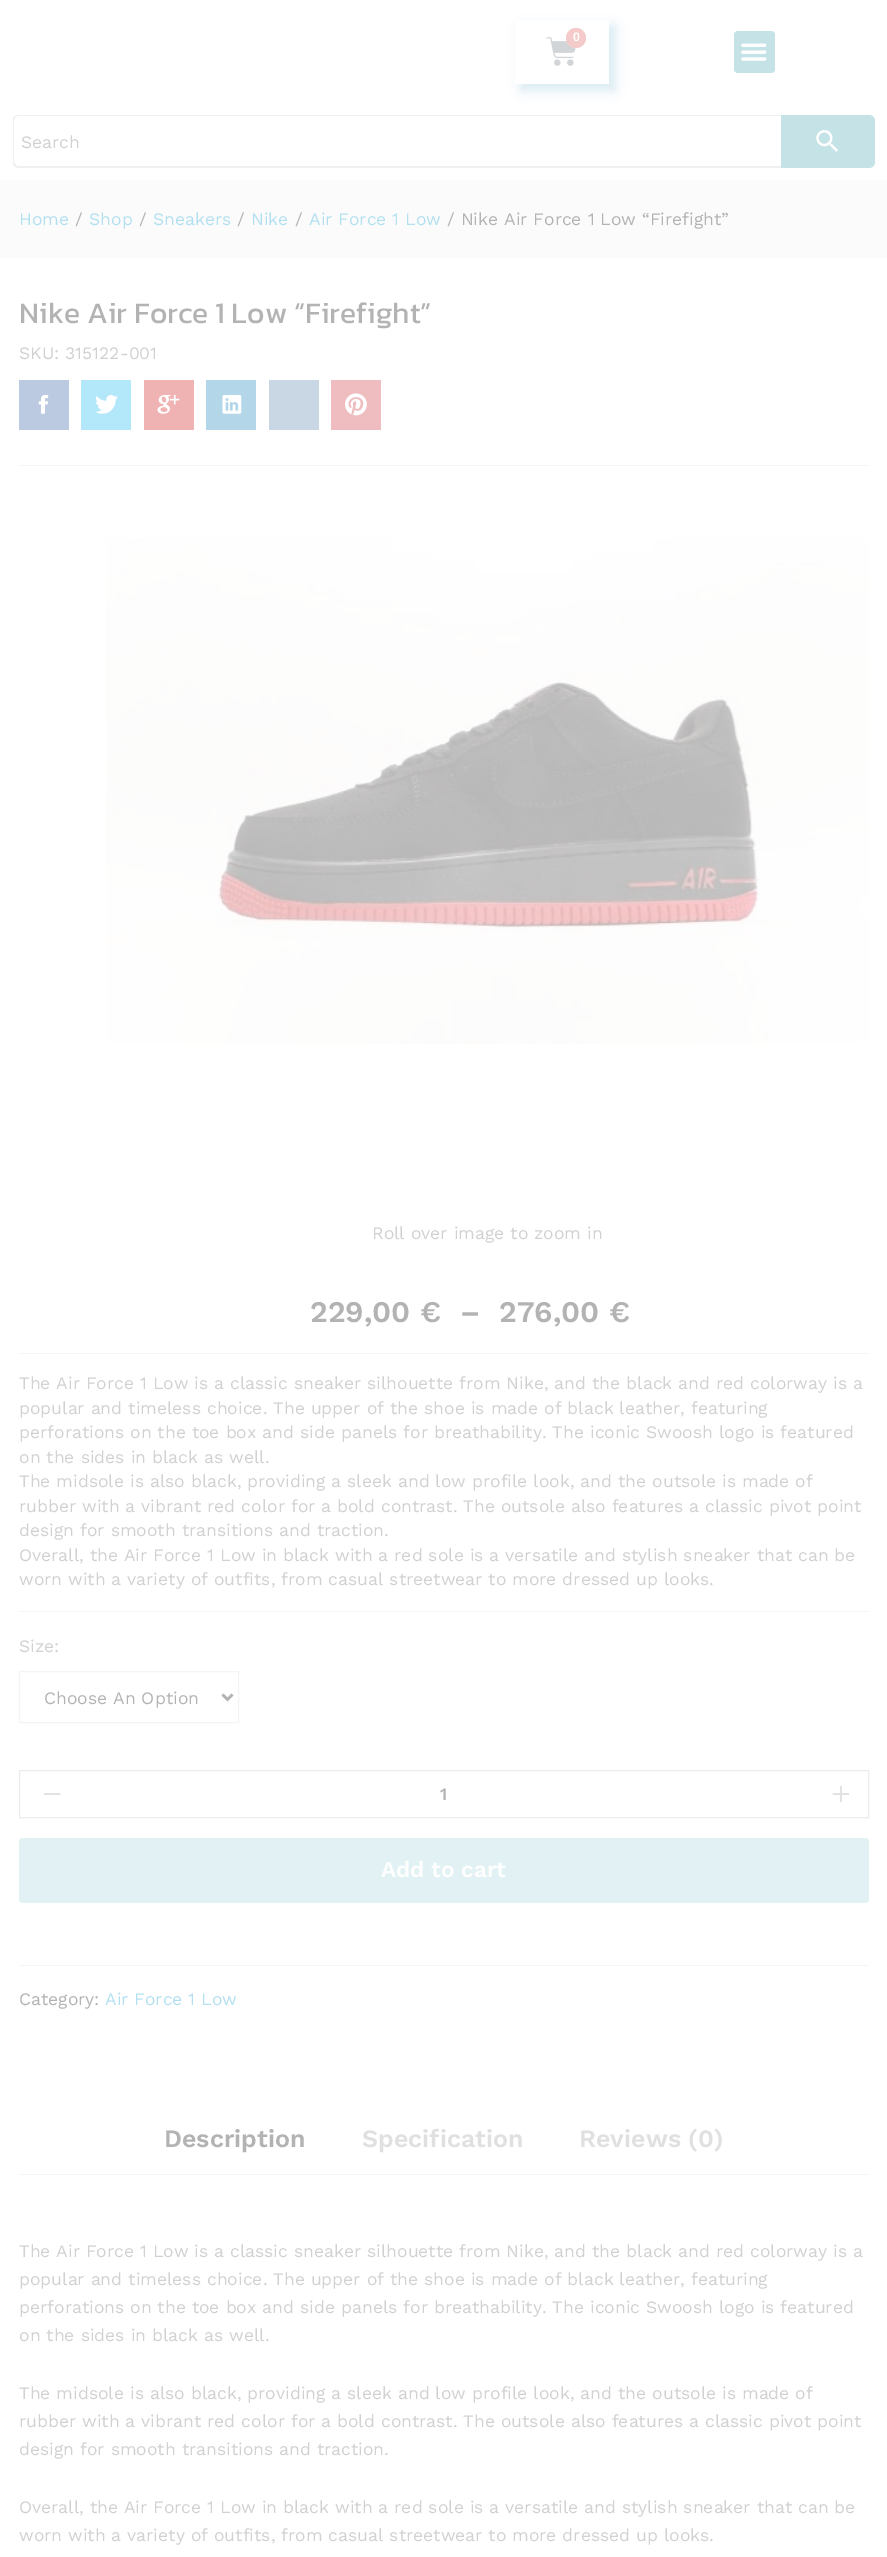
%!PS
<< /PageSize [887 2557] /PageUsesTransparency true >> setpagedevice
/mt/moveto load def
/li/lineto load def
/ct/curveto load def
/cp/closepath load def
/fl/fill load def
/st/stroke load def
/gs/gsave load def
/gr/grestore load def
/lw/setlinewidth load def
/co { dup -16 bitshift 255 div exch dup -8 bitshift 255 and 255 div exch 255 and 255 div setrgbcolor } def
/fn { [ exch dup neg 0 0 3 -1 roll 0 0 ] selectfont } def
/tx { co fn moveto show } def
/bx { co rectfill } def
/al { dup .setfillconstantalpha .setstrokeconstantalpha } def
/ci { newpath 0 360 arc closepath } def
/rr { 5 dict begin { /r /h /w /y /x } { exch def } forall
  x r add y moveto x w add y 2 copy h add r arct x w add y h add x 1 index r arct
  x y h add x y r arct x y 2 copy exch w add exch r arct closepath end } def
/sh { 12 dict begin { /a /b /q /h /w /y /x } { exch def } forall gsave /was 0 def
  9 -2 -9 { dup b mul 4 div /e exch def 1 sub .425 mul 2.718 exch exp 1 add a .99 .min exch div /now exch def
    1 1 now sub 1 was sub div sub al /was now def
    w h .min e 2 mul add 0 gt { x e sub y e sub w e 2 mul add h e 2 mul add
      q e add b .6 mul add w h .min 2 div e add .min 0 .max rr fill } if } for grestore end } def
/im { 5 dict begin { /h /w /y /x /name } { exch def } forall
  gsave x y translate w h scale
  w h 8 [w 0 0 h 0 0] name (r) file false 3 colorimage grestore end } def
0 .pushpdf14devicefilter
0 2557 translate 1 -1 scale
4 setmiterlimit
0 0 887 2557 16#FFFFFF bx
gs
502 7 mt 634 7 li 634 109 li 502 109 li cp 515 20 mt 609 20 li 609 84 li 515 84 li cp eoclip newpath
16#C1E1E6 co
521 26 94 64 0 6 .64 sh
gr
(media/1.raw) 546 37 30 29 im
16#F4CBCA co
576 38 10 ci fl
16#C5E3E7 co
734 31 41 42 4 rr fl
(media/2.raw) 741 43 26 18 im
780 115 mt 869 115 li 872.5 115 875 117.5 875 121 ct 875 162 li 875 165.5 872.5 168 869 168 ct 780 168 li cp fl
16#FFFFFF co
19 116 mt 781 116 li 781 166 li 19 166 li 16 166 14 164 14 161 ct 14 121 li 14 118 16 116 19 116 ct cp fl
gs
13 115 768 53 rectclip
16#F0F0F0 co
19 115 mt 781 115 li 781 168 li 19 168 li 15 168 12 165 12 161 ct 12 121 li 12 118 15 115 19 115 ct cp 19 116 mt 781 116 li 781 166 li 19 166 li 16 166 14 164 14 161 ct 14 121 li 14 118 16 116 19 116 ct cp eofill
gr
(media/3.raw) 816 130 22 22 im
0 180 887 78 16#FBFBFB bx
19 465 850 1 16#F6F6F6 bx
19 380 50 50 16#BBCAE1 bx
(media/4.raw) 38 395 11 19 im
81 380 50 50 16#B3E7FA bx
(media/5.raw) 95 395 23 19 im
144 380 50 50 16#F0B3B3 bx
(media/6.raw) 157 395 23 19 im
206 380 50 50 16#B3D6E9 bx
(media/7.raw) 222 395 20 19 im
269 380 50 50 16#C9D6E3 bx
331 380 50 50 16#EFBDC0 bx
(media/8.raw) 345 393 22 23 im
(media/9.raw) 106 538 763 506 im
19 1353 850 1 16#F6F6F6 bx
19 1611 850 1 16#F6F6F6 bx
16#F4F4F4 co
19.5 1671.5 219 51 rectstroke
16#B3B3B3 co
2.5 lw
222.5 1694.5 mt 227.5 1699.5 li 232.5 1694.5 li st
16#ECECEC co
1 lw
19.5 1770.5 849 47 rectstroke
(media/10.raw) 43 1793 18 2 im
(media/11.raw) 832 1785 18 18 im
16#E2F1F3 co
19 1838 850 65 4 rr fl
19 1965 850 1 16#F6F6F6 bx
19 2174 850 1 16#F6F6F6 bx
(0) 573 41 /Roboto-SemiBold 12 16#FFFFFF tx
(Search) 21 148 /WorkSans-Regular 17.5 16#D1D1D1 tx
(Home) 19 225 /WorkSans-Regular 17.5 16#B3E0F0 tx
(/) 75 225 /WorkSans-Regular 17.5 16#B3B3B3 tx
(Shop) 89 225 /WorkSans-Regular 17.5 16#B3E0F0 tx
(/) 139 225 /WorkSans-Regular 17.5 16#B3B3B3 tx
(Sneakers) 153 225 /WorkSans-Regular 17.5 16#B3E0F0 tx
(/) 237 225 /WorkSans-Regular 17.5 16#B3B3B3 tx
(Nike) 251 225 /WorkSans-Regular 17.5 16#B3E0F0 tx
(/) 295 225 /WorkSans-Regular 17.5 16#B3B3B3 tx
(Air Force 1 Low) 309 225 /WorkSans-Regular 17.5 16#B3E0F0 tx
(/ Nike Air Force 1 Low “Firefight”) 447 225 /WorkSans-Regular 17.5 16#B3B3B3 tx
(Nike Air Force 1 Low “Firefight”) 19 323 /Kanit-Regular 30 16#B3B3B3 tx
(SKU: 315122-001) 19 359 /WorkSans-Regular 17.5 16#D1D1D1 tx
(Roll over image to zoom in) 372 1239 /WorkSans-Regular 17.5 16#D1D1D1 tx
(229,00 €) 310 1322 /WorkSans-SemiBold 30 16#B3B3B3 tx
(–) 460 1322 /WorkSans-SemiBold 30 16#B3B3B3 tx
(276,00 €) 499 1322 /WorkSans-SemiBold 30 16#B3B3B3 tx
(The Air Force 1 Low is a classic sneaker silhouette from Nike, and the black and red colorway is a) 19 1389 /WorkSans-Regular 17.5 16#D1D1D1 tx
(popular and timeless choice. The upper of the shoe is made of black leather, featuring) 19 1414 /WorkSans-Regular 17.5 16#D1D1D1 tx
(perforations on the toe box and side panels for breathability. The iconic Swoosh logo is featured) 19 1438 /WorkSans-Regular 17.5 16#D1D1D1 tx
(on the sides in black as well.) 19 1463 /WorkSans-Regular 17.5 16#D1D1D1 tx
(The midsole is also black, providing a sleek and low profile look, and the outsole is made of) 19 1487 /WorkSans-Regular 17.5 16#D1D1D1 tx
(rubber with a vibrant red color for a bold contrast. The outsole also features a classic pivot point) 19 1512 /WorkSans-Regular 17.5 16#D1D1D1 tx
(design for smooth transitions and traction.) 19 1536 /WorkSans-Regular 17.5 16#D1D1D1 tx
(Overall, the Air Force 1 Low in black with a red sole is a versatile and stylish sneaker that can be) 19 1561 /WorkSans-Regular 17.5 16#D1D1D1 tx
(worn with a variety of outfits, from casual streetwear to more dressed up looks.) 19 1585 /WorkSans-Regular 17.5 16#D1D1D1 tx
(Size:) 19 1652 /WorkSans-Regular 17.5 16#D1D1D1 tx
(Choose An Option) 44 1704 /WorkSans-Regular 17.5 16#B3B3B3 tx
(1) 440 1800 /WorkSans-SemiBold 17.5 16#B3B3B3 tx
(Add to cart) 381 1877 /WorkSans-SemiBold 22.5 16#FFFFFF tx
(Category:) 19 2005 /WorkSans-Regular 17.5 16#B3B3B3 tx
(Air Force 1 Low) 105 2005 /WorkSans-Regular 17.5 16#B3E0F0 tx
(Description) 164 2147 /WorkSans-SemiBold 25 16#B3B3B3 tx
(Specification) 362 2147 /WorkSans-SemiBold 25 16#E0E0E0 tx
(Reviews \(0\)) 579 2147 /WorkSans-SemiBold 25 16#E0E0E0 tx
(The Air Force 1 Low is a classic sneaker silhouette from Nike, and the black and red colorway is a) 19 2257 /WorkSans-Regular 17.5 16#D1D1D1 tx
(popular and timeless choice. The upper of the shoe is made of black leather, featuring) 19 2285 /WorkSans-Regular 17.5 16#D1D1D1 tx
(perforations on the toe box and side panels for breathability. The iconic Swoosh logo is featured) 19 2313 /WorkSans-Regular 17.5 16#D1D1D1 tx
(on the sides in black as well.) 19 2341 /WorkSans-Regular 17.5 16#D1D1D1 tx
(The midsole is also black, providing a sleek and low profile look, and the outsole is made of) 19 2399 /WorkSans-Regular 17.5 16#D1D1D1 tx
(rubber with a vibrant red color for a bold contrast. The outsole also features a classic pivot point) 19 2427 /WorkSans-Regular 17.5 16#D1D1D1 tx
(design for smooth transitions and traction.) 19 2455 /WorkSans-Regular 17.5 16#D1D1D1 tx
(Overall, the Air Force 1 Low in black with a red sole is a versatile and stylish sneaker that can be) 19 2513 /WorkSans-Regular 17.5 16#D1D1D1 tx
(worn with a variety of outfits, from casual streetwear to more dressed up looks.) 19 2541 /WorkSans-Regular 17.5 16#D1D1D1 tx
.poppdf14devicefilter showpage
